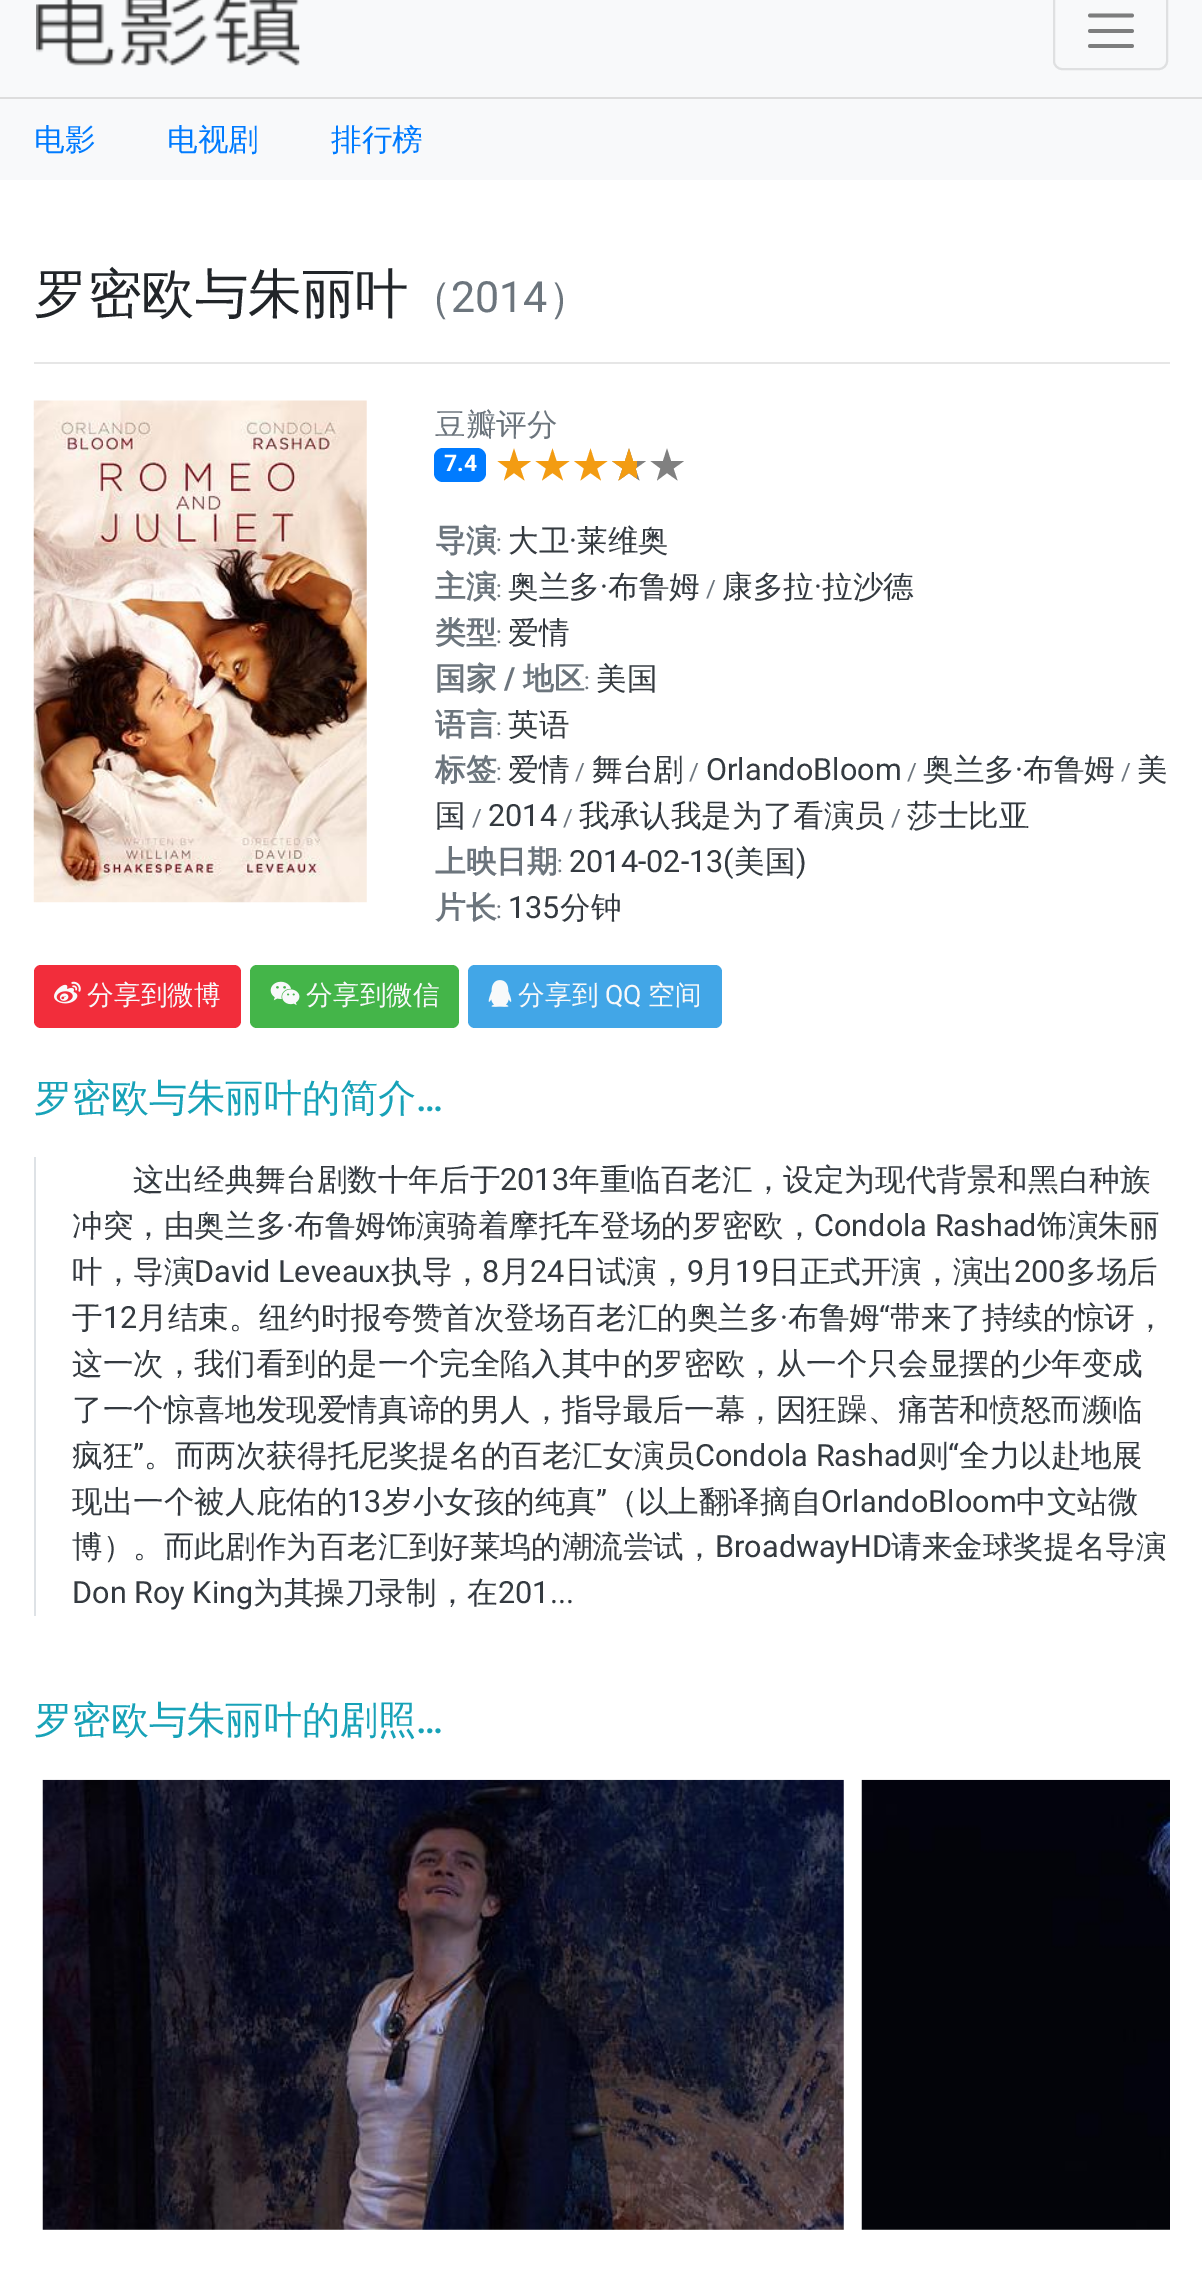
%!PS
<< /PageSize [1202 2290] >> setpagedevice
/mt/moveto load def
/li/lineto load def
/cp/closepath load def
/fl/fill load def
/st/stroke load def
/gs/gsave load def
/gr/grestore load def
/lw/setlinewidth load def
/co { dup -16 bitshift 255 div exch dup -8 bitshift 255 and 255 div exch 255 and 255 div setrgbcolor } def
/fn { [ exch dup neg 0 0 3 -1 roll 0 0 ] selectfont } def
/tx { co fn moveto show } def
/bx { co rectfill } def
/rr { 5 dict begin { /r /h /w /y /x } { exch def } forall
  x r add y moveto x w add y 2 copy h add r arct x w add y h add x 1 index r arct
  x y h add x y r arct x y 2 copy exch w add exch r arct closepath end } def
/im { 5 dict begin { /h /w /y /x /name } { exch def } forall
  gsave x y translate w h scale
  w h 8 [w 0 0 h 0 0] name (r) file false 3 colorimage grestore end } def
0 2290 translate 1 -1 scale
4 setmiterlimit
0 0 1202 2290 16#FFFFFF bx
0 0 1202 97 16#F8F9FA bx
(media/1.raw) 36 0 264 66 im
16#DFE0E1 co
2 lw
1054 -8 113 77 8 rr st
16#7C7D7D co
3.8 lw
1 setlinecap
1090 15.5 mt 1132 15.5 li 1090 31 mt 1132 31 li 1090 46 mt 1132 46 li st
0 99 1202 81 16#F8F9FA bx
0 97 1202 2 16#DDDDDD bx
34 362 1136 2 16#E6E6E6 bx
(media/2.raw) 33 400 334 503 im
16#007BFF co
434 448 52 34 9 rr fl
16#F39C12 co
514 448.5 mt 518 461 li 531 461 li 520.5 468.5 li 524.5 480.5 li 514 473 li 504 480.5 li 507.5 468.5 li 497.5 461 li 510 461 li cp fl
552.5 448.5 mt 556.5 461 li 569.5 461 li 559 468.5 li 563 480.5 li 552.5 473 li 542 480.5 li 546 468.5 li 535.5 461 li 548.5 461 li cp fl
590.5 448.5 mt 594.5 461 li 607.5 461 li 597 468.5 li 601 480.5 li 590.5 473 li 580.5 480.5 li 584 468.5 li 574 461 li 586.5 461 li cp fl
16#808080 co
629 448.5 mt 633 461 li 646 461 li 635.5 468.5 li 639.5 480.5 li 629 473 li 618.5 480.5 li 622.5 468.5 li 612 461 li 625 461 li cp fl
gs
612 448 25 34 rectclip
16#F39C12 co
629 448.5 mt 633 461 li 646 461 li 635.5 468.5 li 639.5 480.5 li 629 473 li 618.5 480.5 li 622.5 468.5 li 612 461 li 625 461 li cp fl
gr
667 448.5 mt 671 461 li 684 461 li 673.5 468.5 li 677.5 480.5 li 667 473 li 657 480.5 li 660.5 468.5 li 650.5 461 li 663 461 li cp fl
16#F22D3B co
34 965 207 63 7 rr fl
(media/3.raw) 54 981 27 23 im
16#44B549 co
250 965 209 63 7 rr fl
(media/4.raw) 270 981 30 25 im
16#42A6E7 co
468 965 254 63 7 rr fl
(media/5.raw) 488 980 24 27 im
34 1157 2 459 16#DEE2E6 bx
(media/6.raw) 42 1779 802 451 im
(media/7.raw) 861 1779 309 451 im
(电影) 34 150 /WenQuanYiZenHei-Medium 30.6 16#007BFF tx
(电视剧) 167 150 /WenQuanYiZenHei-Medium 30.6 16#007BFF tx
(排行榜) 331 150 /WenQuanYiZenHei-Medium 30.6 16#007BFF tx
(罗密欧与朱丽叶) 34 312 /WenQuanYiZenHei-Medium 53.5 16#212529 tx
(（) 409 312 /WenQuanYiZenHei-Medium 43 16#6C757D tx
(2014) 451 312 /Roboto-Regular 43 16#6C757D tx
(）) 548 312 /WenQuanYiZenHei-Medium 43 16#6C757D tx
(豆瓣评分) 435 435 /WenQuanYiZenHei-Medium 30.6 16#6C757D tx
(7.4) 444 471 /Roboto-Bold 23 16#FFFFFF tx
(导演) 435 551 /WenQuanYiZenHei-Bold 30.6 16#6C757D tx
(:) 496 551 /Roboto-Regular 24 16#6C757D tx
(大卫) 508 551 /WenQuanYiZenHei-Medium 30.6 16#343A40 tx
(·) 569 551 /Roboto-Regular 30.6 16#343A40 tx
(莱维奥) 577 551 /WenQuanYiZenHei-Medium 30.6 16#343A40 tx
(主演) 435 597 /WenQuanYiZenHei-Bold 30.6 16#6C757D tx
(:) 496 597 /Roboto-Regular 24 16#6C757D tx
(奥兰多) 508 597 /WenQuanYiZenHei-Medium 30.6 16#343A40 tx
(·) 600 597 /Roboto-Regular 30.6 16#343A40 tx
(布鲁姆) 608 597 /WenQuanYiZenHei-Medium 30.6 16#343A40 tx
(/) 706 597 /Roboto-Regular 24 16#6C757D tx
(康多拉) 722 597 /WenQuanYiZenHei-Medium 30.6 16#343A40 tx
(·) 814 597 /Roboto-Regular 30.6 16#343A40 tx
(拉沙德) 822 597 /WenQuanYiZenHei-Medium 30.6 16#343A40 tx
(类型) 435 643 /WenQuanYiZenHei-Bold 30.6 16#6C757D tx
(:) 496 643 /Roboto-Regular 24 16#6C757D tx
(爱情) 508 643 /WenQuanYiZenHei-Medium 30.6 16#343A40 tx
(国家) 435 689 /WenQuanYiZenHei-Bold 30.6 16#6C757D tx
(/) 504 689 /Roboto-Bold 30.6 16#6C757D tx
(地区) 523 689 /WenQuanYiZenHei-Bold 30.6 16#6C757D tx
(:) 584 689 /Roboto-Regular 24 16#6C757D tx
(美国) 596 689 /WenQuanYiZenHei-Medium 30.6 16#343A40 tx
(语言) 435 735 /WenQuanYiZenHei-Bold 30.6 16#6C757D tx
(:) 496 735 /Roboto-Regular 24 16#6C757D tx
(英语) 508 735 /WenQuanYiZenHei-Medium 30.6 16#343A40 tx
(标签) 435 780 /WenQuanYiZenHei-Bold 30.6 16#6C757D tx
(:) 496 780 /Roboto-Regular 24 16#6C757D tx
(爱情) 508 780 /WenQuanYiZenHei-Medium 30.6 16#343A40 tx
(/) 575 780 /Roboto-Regular 24 16#6C757D tx
(舞台剧) 592 780 /WenQuanYiZenHei-Medium 30.6 16#343A40 tx
(/) 689 780 /Roboto-Regular 24 16#6C757D tx
(OrlandoBloom) 706 780 /Roboto-Regular 30.6 16#343A40 tx
(/) 907 780 /Roboto-Regular 24 16#6C757D tx
(奥兰多) 923 780 /WenQuanYiZenHei-Medium 30.6 16#343A40 tx
(·) 1015 780 /Roboto-Regular 30.6 16#343A40 tx
(布鲁姆) 1023 780 /WenQuanYiZenHei-Medium 30.6 16#343A40 tx
(/) 1121 780 /Roboto-Regular 24 16#6C757D tx
(美) 1137 780 /WenQuanYiZenHei-Medium 30.6 16#343A40 tx
(国) 435 826 /WenQuanYiZenHei-Medium 30.6 16#343A40 tx
(/) 472 826 /Roboto-Regular 24 16#6C757D tx
(2014) 488 826 /Roboto-Regular 30.6 16#343A40 tx
(/) 563 826 /Roboto-Regular 24 16#6C757D tx
(我承认我是为了看演员) 579 826 /WenQuanYiZenHei-Medium 30.6 16#343A40 tx
(/) 891 826 /Roboto-Regular 24 16#6C757D tx
(莎士比亚) 907 826 /WenQuanYiZenHei-Medium 30.6 16#343A40 tx
(上映日期) 435 872 /WenQuanYiZenHei-Bold 30.6 16#6C757D tx
(:) 557 872 /Roboto-Regular 24 16#6C757D tx
(2014-02-13\() 569 872 /Roboto-Regular 30.6 16#343A40 tx
(美国) 734 872 /WenQuanYiZenHei-Medium 30.6 16#343A40 tx
(\)) 796 872 /Roboto-Regular 30.6 16#343A40 tx
(片长) 435 918 /WenQuanYiZenHei-Bold 30.6 16#6C757D tx
(:) 496 918 /Roboto-Regular 24 16#6C757D tx
(135) 508 918 /Roboto-Regular 30.6 16#343A40 tx
(分钟) 560 918 /WenQuanYiZenHei-Medium 30.6 16#343A40 tx
(分享到微博) 87 1004 /WenQuanYiZenHei-Medium 26.75 16#F8F9FA tx
(分享到微信) 306 1004 /WenQuanYiZenHei-Medium 26.75 16#F8F9FA tx
(分享到) 518 1004 /WenQuanYiZenHei-Medium 26.75 16#F8F9FA tx
(QQ) 605 1004 /Roboto-Regular 26.75 16#F8F9FA tx
(空间) 648 1004 /WenQuanYiZenHei-Medium 26.75 16#F8F9FA tx
(罗密欧与朱丽叶的简介) 34 1111 /WenQuanYiZenHei-Medium 38.25 16#17A2B8 tx
(…) 416 1111 /Roboto-Medium 38.25 16#17A2B8 tx
(这出经典舞台剧数十年后于) 133 1190 /WenQuanYiZenHei-Medium 30.6 16#343A40 tx
(2013) 500 1190 /Roboto-Regular 30.6 16#343A40 tx
(年重临百老汇，设定为现代背景和黑白种族) 569 1190 /WenQuanYiZenHei-Medium 30.6 16#343A40 tx
(冲突，由奥兰多) 72 1236 /WenQuanYiZenHei-Medium 30.6 16#343A40 tx
(·) 286 1236 /Roboto-Regular 30.6 16#343A40 tx
(布鲁姆饰演骑着摩托车登场的罗密欧，) 294 1236 /WenQuanYiZenHei-Medium 30.6 16#343A40 tx
(Condola Rashad) 814 1236 /Roboto-Regular 30.6 16#343A40 tx
(饰演朱丽) 1037 1236 /WenQuanYiZenHei-Medium 30.6 16#343A40 tx
(叶，导演) 72 1282 /WenQuanYiZenHei-Medium 30.6 16#343A40 tx
(David Leveaux) 194 1282 /Roboto-Regular 30.6 16#343A40 tx
(执导，) 391 1282 /WenQuanYiZenHei-Medium 30.6 16#343A40 tx
(8) 482 1282 /Roboto-Regular 30.6 16#343A40 tx
(月) 500 1282 /WenQuanYiZenHei-Medium 30.6 16#343A40 tx
(24) 530 1282 /Roboto-Regular 30.6 16#343A40 tx
(日试演，) 565 1282 /WenQuanYiZenHei-Medium 30.6 16#343A40 tx
(9) 687 1282 /Roboto-Regular 30.6 16#343A40 tx
(月) 704 1282 /WenQuanYiZenHei-Medium 30.6 16#343A40 tx
(19) 735 1282 /Roboto-Regular 30.6 16#343A40 tx
(日正式开演，演出) 769 1282 /WenQuanYiZenHei-Medium 30.6 16#343A40 tx
(200) 1014 1282 /Roboto-Regular 30.6 16#343A40 tx
(多场后) 1066 1282 /WenQuanYiZenHei-Medium 30.6 16#343A40 tx
(于) 72 1328 /WenQuanYiZenHei-Medium 30.6 16#343A40 tx
(12) 103 1328 /Roboto-Regular 30.6 16#343A40 tx
(月结束。纽约时报夸赞首次登场百老汇的奥兰多) 137 1328 /WenQuanYiZenHei-Medium 30.6 16#343A40 tx
(·) 780 1328 /Roboto-Regular 30.6 16#343A40 tx
(布鲁姆) 788 1328 /WenQuanYiZenHei-Medium 30.6 16#343A40 tx
(“) 879 1328 /Roboto-Regular 30.6 16#343A40 tx
(带来了持续的惊讶，) 890 1328 /WenQuanYiZenHei-Medium 30.6 16#343A40 tx
(这一次，我们看到的是一个完全陷入其中的罗密欧，从一个只会显摆的少年变成) 72 1374 /WenQuanYiZenHei-Medium 30.6 16#343A40 tx
(了一个惊喜地发现爱情真谛的男人，指导最后一幕，因狂躁、痛苦和愤怒而濒临) 72 1420 /WenQuanYiZenHei-Medium 30.6 16#343A40 tx
(疯狂) 72 1466 /WenQuanYiZenHei-Medium 30.6 16#343A40 tx
(”) 133 1466 /Roboto-Regular 30.6 16#343A40 tx
(。而两次获得托尼奖提名的百老汇女演员) 144 1466 /WenQuanYiZenHei-Medium 30.6 16#343A40 tx
(Condola Rashad) 695 1466 /Roboto-Regular 30.6 16#343A40 tx
(则) 918 1466 /WenQuanYiZenHei-Medium 30.6 16#343A40 tx
(“) 948 1466 /Roboto-Regular 30.6 16#343A40 tx
(全力以赴地展) 959 1466 /WenQuanYiZenHei-Medium 30.6 16#343A40 tx
(现出一个被人庇佑的) 72 1512 /WenQuanYiZenHei-Medium 30.6 16#343A40 tx
(13) 347 1512 /Roboto-Regular 30.6 16#343A40 tx
(岁小女孩的纯真) 382 1512 /WenQuanYiZenHei-Medium 30.6 16#343A40 tx
(”) 596 1512 /Roboto-Regular 30.6 16#343A40 tx
(（以上翻译摘自) 607 1512 /WenQuanYiZenHei-Medium 30.6 16#343A40 tx
(OrlandoBloom) 821 1512 /Roboto-Regular 30.6 16#343A40 tx
(中文站微) 1016 1512 /WenQuanYiZenHei-Medium 30.6 16#343A40 tx
(博）。而此剧作为百老汇到好莱坞的潮流尝试，) 72 1557 /WenQuanYiZenHei-Medium 30.6 16#343A40 tx
(BroadwayHD) 715 1557 /Roboto-Regular 30.6 16#343A40 tx
(请来金球奖提名导演) 891 1557 /WenQuanYiZenHei-Medium 30.6 16#343A40 tx
(Don Roy King) 72 1603 /Roboto-Regular 30.6 16#343A40 tx
(为其操刀录制，在) 253 1603 /WenQuanYiZenHei-Medium 30.6 16#343A40 tx
(201...) 498 1603 /Roboto-Regular 30.6 16#343A40 tx
(罗密欧与朱丽叶的剧照) 34 1733 /WenQuanYiZenHei-Medium 38.25 16#17A2B8 tx
(…) 416 1733 /Roboto-Medium 38.25 16#17A2B8 tx
showpage
